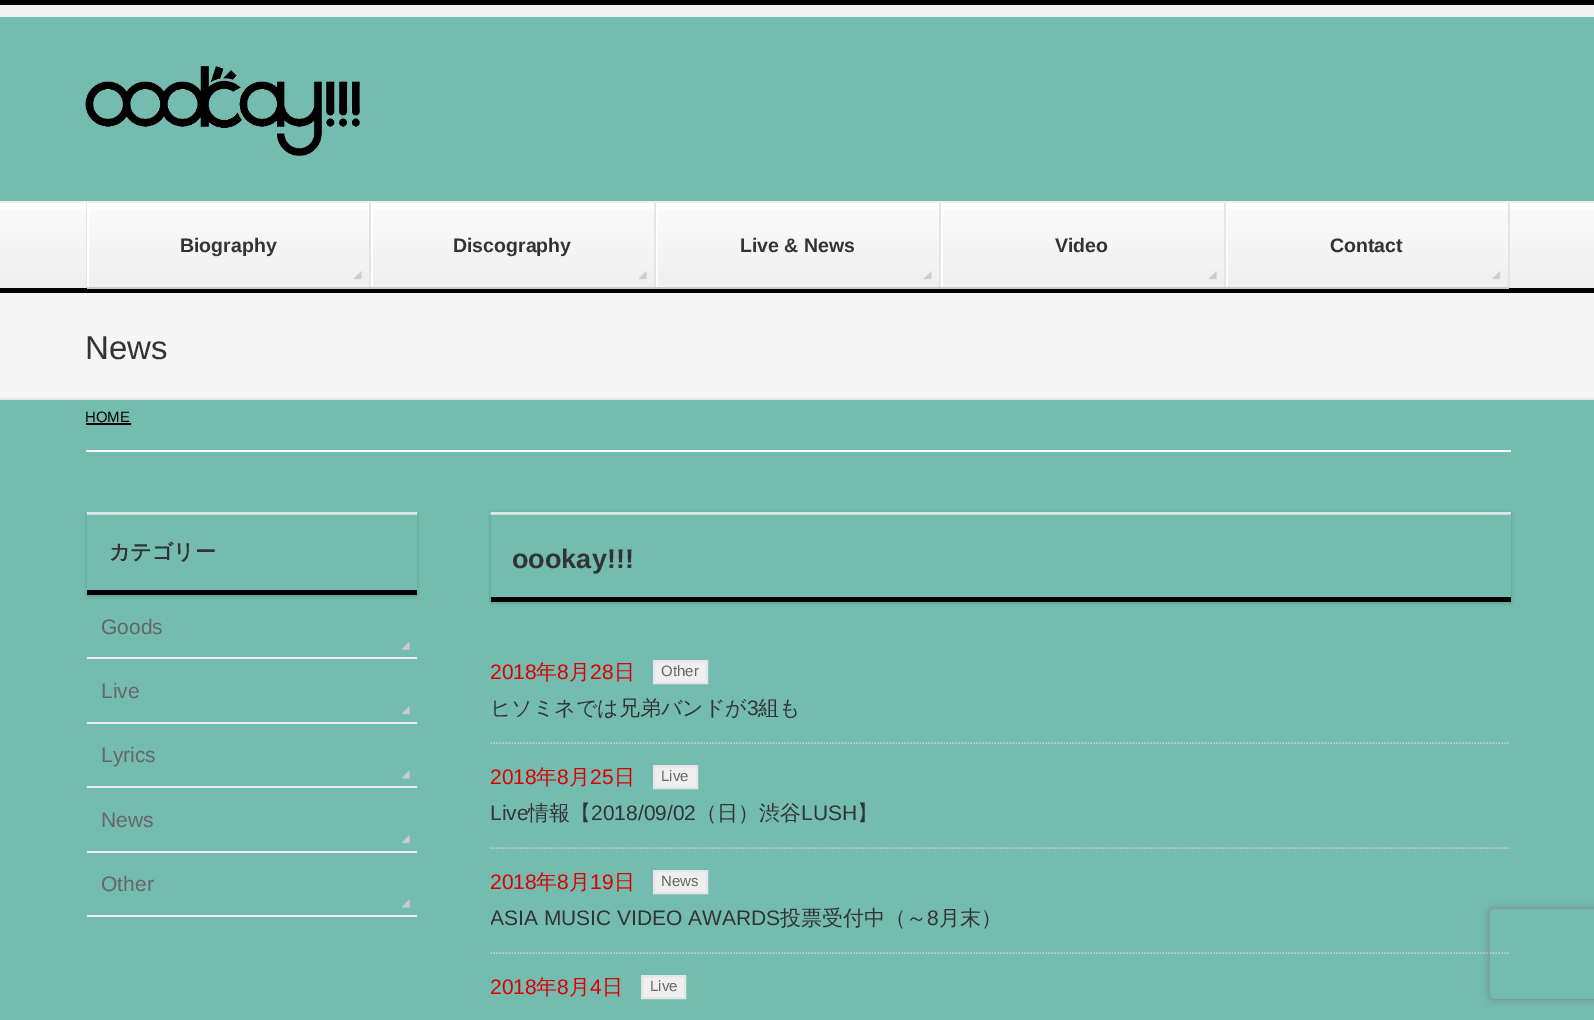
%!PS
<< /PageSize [1594 1020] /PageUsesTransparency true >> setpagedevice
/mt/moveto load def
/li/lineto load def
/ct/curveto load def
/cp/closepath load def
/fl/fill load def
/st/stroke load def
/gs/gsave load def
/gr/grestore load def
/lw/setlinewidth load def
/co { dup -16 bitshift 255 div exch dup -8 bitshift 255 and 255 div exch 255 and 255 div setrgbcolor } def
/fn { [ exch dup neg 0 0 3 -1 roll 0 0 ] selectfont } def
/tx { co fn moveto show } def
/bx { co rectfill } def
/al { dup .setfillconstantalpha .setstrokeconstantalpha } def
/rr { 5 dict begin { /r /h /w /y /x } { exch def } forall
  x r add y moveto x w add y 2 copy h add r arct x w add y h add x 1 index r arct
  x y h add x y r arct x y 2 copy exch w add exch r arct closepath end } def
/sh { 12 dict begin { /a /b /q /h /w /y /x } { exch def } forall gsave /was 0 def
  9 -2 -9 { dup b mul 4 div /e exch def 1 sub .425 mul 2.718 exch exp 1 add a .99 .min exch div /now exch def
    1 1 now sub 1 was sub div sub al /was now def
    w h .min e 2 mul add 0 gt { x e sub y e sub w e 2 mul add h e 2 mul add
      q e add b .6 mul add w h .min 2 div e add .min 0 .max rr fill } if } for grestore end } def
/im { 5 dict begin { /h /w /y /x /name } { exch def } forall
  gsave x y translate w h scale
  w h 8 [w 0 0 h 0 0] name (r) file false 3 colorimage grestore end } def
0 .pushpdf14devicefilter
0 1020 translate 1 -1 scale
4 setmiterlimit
0 0 1594 1020 16#74BCB0 bx
0 5 1594 12 16#F3F3F3 bx
0 0 1594 5 16#000000 bx
(media/1.raw) 85 66 275 90 im
0 203 1594 6 16#FFFFFF bx
(media/2.raw) 0 209 1594 79 im
0 201 1594 2 16#EEEEEE bx
0 288 1594 5 16#000000 bx
86 203 1 85 16#E5E5E5 bx
87 203 2 85 16#FFFFFF bx
(media/3.raw) 354 271 8 9 im
369 203 2 85 16#E5E5E5 bx
87 287 284 2 16#CCCCCC bx
371 203 2 85 16#FFFFFF bx
(media/4.raw) 639 271 8 9 im
654 203 2 85 16#E5E5E5 bx
371 287 285 2 16#CCCCCC bx
656 203 2 85 16#FFFFFF bx
(media/4.raw) 924 271 8 9 im
939 203 2 85 16#E5E5E5 bx
656 287 285 2 16#CCCCCC bx
941 203 2 85 16#FFFFFF bx
(media/3.raw) 1209 271 8 9 im
1224 203 2 85 16#E5E5E5 bx
941 287 285 2 16#CCCCCC bx
1226 203 2 85 16#FFFFFF bx
(media/5.raw) 1492 271 9 9 im
1508 203 2 85 16#E5E5E5 bx
1226 287 283 2 16#CCCCCC bx
0 293 1594 105 16#F5F5F5 bx
0 398 1594 2 16#E5E5E5 bx
86 450 1425 2 16#FFFFFF bx
86 423 45 2 16#000000 bx
gs
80 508 mt 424 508 li 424 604 li 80 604 li cp 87 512 mt 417 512 li 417 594 li 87 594 li cp eoclip newpath
87 515 330 82 0 2 .15 sh
gr
(media/6.raw) 87 514 330 1 im
87 512 330 2 16#E5E5E5 bx
87 590 330 5 16#000000 bx
87 657 330 2 16#EEEEEE bx
(media/7.raw) 402 642 8 8 im
87 722 330 2 16#EEEEEE bx
(media/8.raw) 402 706 8 9 im
87 786 330 2 16#EEEEEE bx
(media/7.raw) 402 771 8 8 im
87 851 330 2 16#EEEEEE bx
(media/8.raw) 402 835 8 9 im
87 915 330 2 16#EEEEEE bx
(media/7.raw) 402 900 8 8 im
gs
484 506 mt 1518 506 li 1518 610 li 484 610 li cp 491 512 mt 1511 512 li 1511 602 li 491 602 li cp eoclip newpath
16#000000 co
491 513 1020 90 0 2 .2 sh
gr
(media/9.raw) 490 513 1021 2 im
491 512 1020 2 16#E5E5E5 bx
491 597 1020 5 16#000000 bx
16#CCCCCC co
1.5 lw
[1.5 1.5] 0 setdash
490.5 743 mt 1510.5 743 li st
16#EFEFEF co
654 661 mt 707 661 li 707 683 li 654 683 li cp gs fl gr
16#E5E5E5 co
2 lw
[] 0 setdash
st
16#CCCCCC co
1.5 lw
[1.5 1.5] 0 setdash
490.5 848 mt 1510.5 848 li st
16#EFEFEF co
654 766 mt 697 766 li 697 788 li 654 788 li cp gs fl gr
16#E5E5E5 co
2 lw
[] 0 setdash
st
16#CCCCCC co
1.5 lw
[1.5 1.5] 0 setdash
490.5 953 mt 1510.5 953 li st
16#EFEFEF co
654 871 mt 707 871 li 707 893 li 654 893 li cp gs fl gr
16#E5E5E5 co
2 lw
[] 0 setdash
st
16#EFEFEF co
642 976 mt 685 976 li 685 998 li 642 998 li cp gs fl gr
16#E5E5E5 co
st
gs
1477 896 mt 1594 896 li 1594 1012 li 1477 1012 li cp 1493 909 mt 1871 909 li 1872.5 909 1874 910.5 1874 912 ct 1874 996 li 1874 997.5 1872.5 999 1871 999 ct 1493 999 li 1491.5 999 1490 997.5 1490 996 ct 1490 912 li 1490 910.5 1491.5 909 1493 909 ct cp eoclip newpath
16#808080 co
1490 909 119 90 3 4 1 sh
gr
(Biography) 180 252 /LiberationSans-Bold 19.5 16#333333 tx
(Discography) 453 252 /LiberationSans-Bold 19.5 16#333333 tx
(Live & News) 740 252 /LiberationSans-Bold 19.5 16#333333 tx
(Video) 1055 252 /LiberationSans-Bold 19.5 16#333333 tx
(Contact) 1330 252 /LiberationSans-Bold 19.5 16#333333 tx
(News) 85 359 /LiberationSans-Regular 33 16#333333 tx
(HOME) 85 422 /LiberationSans-Regular 15 16#000000 tx
(カテゴリー) 109 559 /WenQuanYiZenHei-Bold 21 16#333333 tx
(Goods) 101 634 /LiberationSans-Regular 21 16#666666 tx
(Live) 101 698 /LiberationSans-Regular 21 16#666666 tx
(Lyrics) 101 762 /LiberationSans-Regular 21 16#666666 tx
(News) 101 827 /LiberationSans-Regular 21 16#666666 tx
(Other) 101 891 /LiberationSans-Regular 21 16#666666 tx
(oookay!!!) 512 568 /LiberationSans-Bold 27 16#333333 tx
(2018) 490 679 /LiberationSans-Regular 21 16#DD0000 tx
(年) 536 679 /WenQuanYiZenHei-Medium 21 16#DD0000 tx
(8) 557 679 /LiberationSans-Regular 21 16#DD0000 tx
(月) 569 679 /WenQuanYiZenHei-Medium 21 16#DD0000 tx
(28) 590 679 /LiberationSans-Regular 21 16#DD0000 tx
(日) 614 679 /WenQuanYiZenHei-Medium 21 16#DD0000 tx
(Other) 661 676 /LiberationSans-Regular 15 16#666666 tx
(ヒソミネでは兄弟バンドが) 490 715 /WenQuanYiZenHei-Medium 21 16#333333 tx
(3) 747 715 /LiberationSans-Regular 21 16#333333 tx
(組も) 758 715 /WenQuanYiZenHei-Medium 21 16#333333 tx
(2018) 490 784 /LiberationSans-Regular 21 16#DD0000 tx
(年) 536 784 /WenQuanYiZenHei-Medium 21 16#DD0000 tx
(8) 557 784 /LiberationSans-Regular 21 16#DD0000 tx
(月) 569 784 /WenQuanYiZenHei-Medium 21 16#DD0000 tx
(25) 590 784 /LiberationSans-Regular 21 16#DD0000 tx
(日) 614 784 /WenQuanYiZenHei-Medium 21 16#DD0000 tx
(Live) 661 781 /LiberationSans-Regular 15 16#666666 tx
(Live) 490 820 /LiberationSans-Regular 21 16#333333 tx
(情報【) 528 820 /WenQuanYiZenHei-Medium 21 16#333333 tx
(2018/09/02) 591 820 /LiberationSans-Regular 21 16#333333 tx
(（日）渋谷) 696 820 /WenQuanYiZenHei-Medium 21 16#333333 tx
(LUSH) 801 820 /LiberationSans-Regular 21 16#333333 tx
(】) 857 820 /WenQuanYiZenHei-Medium 21 16#333333 tx
(2018) 490 889 /LiberationSans-Regular 21 16#DD0000 tx
(年) 536 889 /WenQuanYiZenHei-Medium 21 16#DD0000 tx
(8) 557 889 /LiberationSans-Regular 21 16#DD0000 tx
(月) 569 889 /WenQuanYiZenHei-Medium 21 16#DD0000 tx
(19) 590 889 /LiberationSans-Regular 21 16#DD0000 tx
(日) 614 889 /WenQuanYiZenHei-Medium 21 16#DD0000 tx
(News) 661 886 /LiberationSans-Regular 15 16#666666 tx
gs
491 903 1020 32 rectclip
(ASIA MUSIC VIDEO AWARDS) 490 925 /LiberationSans-Regular 21 16#333333 tx
gr
(投票受付中（～) 780 925 /WenQuanYiZenHei-Medium 21 16#333333 tx
(8) 927 925 /LiberationSans-Regular 21 16#333333 tx
(月末）) 939 925 /WenQuanYiZenHei-Medium 21 16#333333 tx
(2018) 490 994 /LiberationSans-Regular 21 16#DD0000 tx
(年) 536 994 /WenQuanYiZenHei-Medium 21 16#DD0000 tx
(8) 557 994 /LiberationSans-Regular 21 16#DD0000 tx
(月) 569 994 /WenQuanYiZenHei-Medium 21 16#DD0000 tx
(4) 590 994 /LiberationSans-Regular 21 16#DD0000 tx
(日) 602 994 /WenQuanYiZenHei-Medium 21 16#DD0000 tx
(Live) 650 991 /LiberationSans-Regular 15 16#666666 tx
.poppdf14devicefilter showpage
